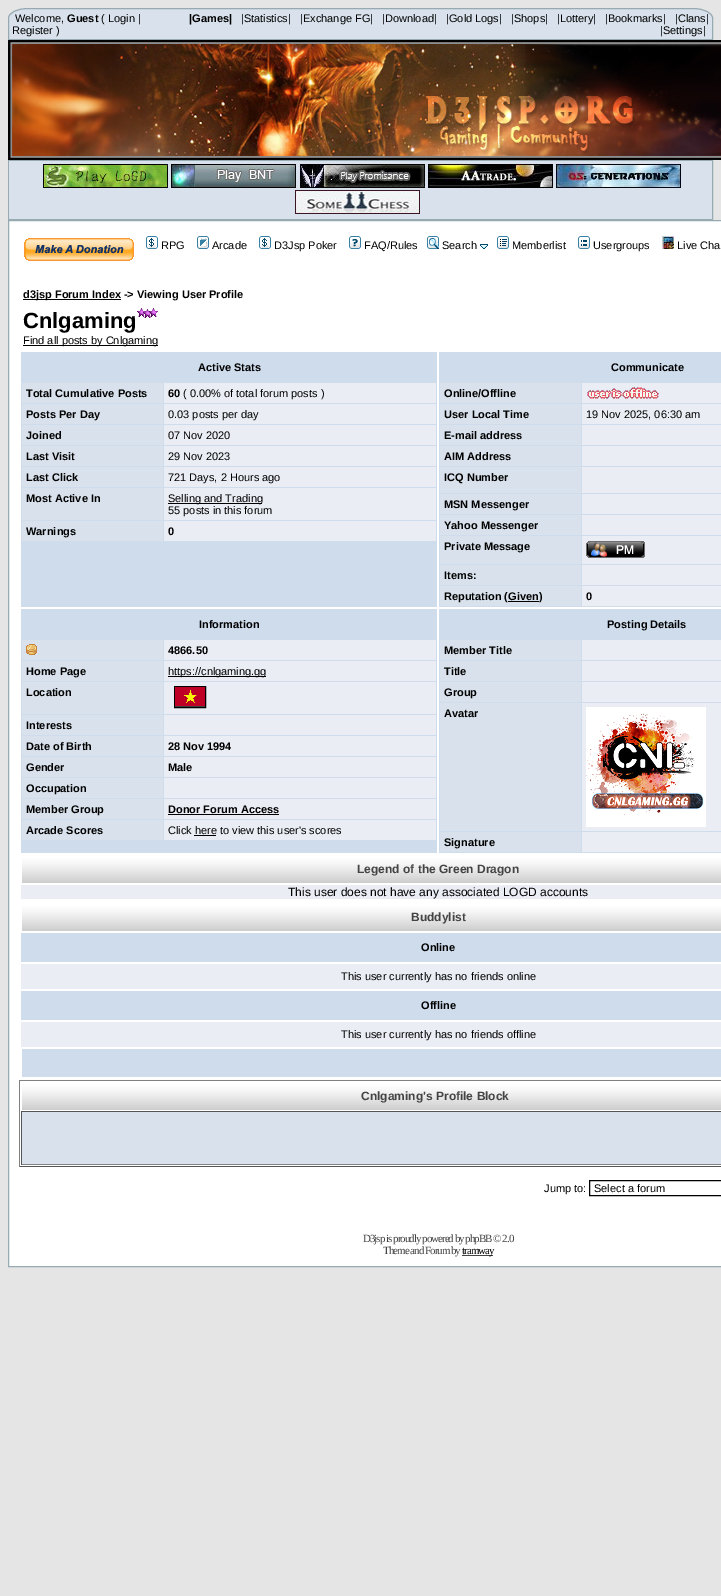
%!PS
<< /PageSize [721 1596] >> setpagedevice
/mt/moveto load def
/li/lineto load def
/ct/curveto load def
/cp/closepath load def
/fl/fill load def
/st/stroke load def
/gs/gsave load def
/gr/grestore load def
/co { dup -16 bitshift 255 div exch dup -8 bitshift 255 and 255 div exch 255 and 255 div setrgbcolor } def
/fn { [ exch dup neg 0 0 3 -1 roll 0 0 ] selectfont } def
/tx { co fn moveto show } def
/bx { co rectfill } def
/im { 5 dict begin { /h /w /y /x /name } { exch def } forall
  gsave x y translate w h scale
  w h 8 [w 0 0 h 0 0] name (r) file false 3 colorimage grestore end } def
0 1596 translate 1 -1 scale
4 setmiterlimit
0 0 721 1596 16#E5E5E5 bx
16#D9E2EC co
28 8 mt 693 8 li 704 8 713 12 713 18 ct 713 40 li 8 40 li 8 18 li 8 12 17 8 28 8 ct cp fl
16#98AAB1 co
28 8.5 mt 693 8.5 li 704 8.5 712.5 13 712.5 18 ct 712.5 39.5 li 8.5 39.5 li 8.5 18 li 8.5 13 17 8.5 28 8.5 ct cp st
(media/1.raw) 8 40 713 120 im
8.5 160.5 704 59 rectstroke
9 161 703 58 16#D9E2EC bx
(media/2.raw) 43 164 125 24 im
(media/3.raw) 171 164 125 24 im
(media/4.raw) 300 164 125 24 im
(media/5.raw) 428 164 125 24 im
(media/6.raw) 556 164 125 24 im
(media/7.raw) 295 190 125 24 im
16#FFFFFF co
8.5 220.5 mt 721.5 220.5 li 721.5 1266.5 li 8.5 1266.5 li cp gs fl gr
16#98AAB1 co
st
(media/8.raw) 24 238 110 23 im
(media/9.raw) 146 236 12 13 im
(media/10.raw) 197 236 12 13 im
(media/9.raw) 259 236 12 13 im
(media/11.raw) 349 236 12 13 im
(media/12.raw) 427 236 12 13 im
(media/13.raw) 480 244 8 5 im
(media/14.raw) 497 236 12 13 im
(media/15.raw) 578 236 12 13 im
(media/16.raw) 662 236 12 13 im
23 299 98 1 16#000000 bx
(media/17.raw) 137 308 21 10 im
23 345 135 1 16#000000 bx
21 352 416 255 16#CEDCEC bx
22 383 141 20 16#D9E2EC bx
164 383 272 20 16#EAEDF4 bx
22 404 141 20 16#D9E2EC bx
164 404 272 20 16#EAEDF4 bx
22 425 141 20 16#D9E2EC bx
164 425 272 20 16#EAEDF4 bx
22 446 141 20 16#D9E2EC bx
164 446 272 20 16#EAEDF4 bx
22 467 141 20 16#D9E2EC bx
164 467 272 20 16#EAEDF4 bx
22 488 141 32 16#D9E2EC bx
164 488 272 32 16#EAEDF4 bx
168 503 94 1 16#000000 bx
22 521 141 20 16#D9E2EC bx
164 521 272 20 16#EAEDF4 bx
439 352 282 255 16#CEDCEC bx
440 383 141 20 16#D9E2EC bx
582 383 139 20 16#EAEDF4 bx
(media/18.raw) 587 387 72 12 im
440 404 141 20 16#D9E2EC bx
582 404 139 20 16#EAEDF4 bx
440 425 141 20 16#D9E2EC bx
582 425 139 20 16#EAEDF4 bx
440 446 141 20 16#D9E2EC bx
582 446 139 20 16#EAEDF4 bx
440 467 141 26 16#D9E2EC bx
582 467 139 26 16#EAEDF4 bx
440 494 141 20 16#D9E2EC bx
582 494 139 20 16#EAEDF4 bx
440 515 141 20 16#D9E2EC bx
582 515 139 20 16#EAEDF4 bx
440 536 141 28 16#D9E2EC bx
582 536 139 28 16#EAEDF4 bx
(media/19.raw) 586 541 59 17 im
440 565 141 20 16#D9E2EC bx
582 565 139 20 16#EAEDF4 bx
440 586 141 20 16#D9E2EC bx
508 601 31 1 16#000000 bx
582 586 139 20 16#EAEDF4 bx
21 609 416 244 16#CEDCEC bx
22 640 141 20 16#D9E2EC bx
(media/20.raw) 26 644 11 11 im
164 640 272 20 16#EAEDF4 bx
22 661 141 20 16#D9E2EC bx
164 661 272 20 16#EAEDF4 bx
168 676 98 1 16#000000 bx
22 682 141 32 16#D9E2EC bx
164 682 272 32 16#EAEDF4 bx
16#000000 co
174.5 686.5 31 21 rectstroke
(media/21.raw) 175 687 30 20 im
22 715 141 20 16#D9E2EC bx
164 715 272 20 16#EAEDF4 bx
22 736 141 20 16#D9E2EC bx
164 736 272 20 16#EAEDF4 bx
22 757 141 20 16#D9E2EC bx
164 757 272 20 16#EAEDF4 bx
22 778 141 20 16#D9E2EC bx
164 778 272 20 16#EAEDF4 bx
22 799 141 20 16#D9E2EC bx
164 799 272 20 16#EAEDF4 bx
168 814 111 1 16#000000 bx
22 820 141 20 16#D9E2EC bx
164 820 272 20 16#EAEDF4 bx
194 835 22 1 16#000000 bx
439 609 282 244 16#CEDCEC bx
440 640 141 20 16#D9E2EC bx
582 640 139 20 16#EAEDF4 bx
440 661 141 20 16#D9E2EC bx
582 661 139 20 16#EAEDF4 bx
440 682 141 20 16#D9E2EC bx
582 682 139 20 16#EAEDF4 bx
440 703 141 128 16#D9E2EC bx
582 703 139 128 16#EAEDF4 bx
(media/22.raw) 586 707 120 120 im
440 832 141 20 16#D9E2EC bx
582 832 139 20 16#EAEDF4 bx
(media/23.raw) 22 856 699 27 im
21 885 700 14 16#EAEDF4 bx
(media/23.raw) 22 904 699 27 im
21 933 700 29 16#CEDCEC bx
21 964 700 25 16#EAEDF4 bx
21 991 700 29 16#CEDCEC bx
21 1022 700 25 16#EAEDF4 bx
22 1049 699 28 16#CEDCEC bx
19 1080 702 1 16#808080 bx
19 1166 702 1 16#555555 bx
19 1080 1 87 16#808080 bx
(media/23.raw) 22 1083 699 27 im
22 1112 699 52 16#D9E2EC bx
21 1111 700 1 16#555555 bx
21 1164 700 1 16#808080 bx
21 1111 1 54 16#555555 bx
16#000000 co
589.5 1180.5 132 15 rectstroke
462 1255 31 1 16#444444 bx
(Welcome,) 15 22 /LiberationSans-Regular 11 16#000000 tx
(Guest) 67 22 /LiberationSans-Bold 11 16#000000 tx
(\( Login |) 101 22 /LiberationSans-Regular 11 16#000000 tx
(Register \)) 12 34 /LiberationSans-Regular 11 16#000000 tx
(|Games|) 189 22 /LiberationSans-Bold 11 16#000000 tx
(|Statistics|) 241 22 /LiberationSans-Regular 11 16#000000 tx
(|Exchange FG|) 300 22 /LiberationSans-Regular 11 16#000000 tx
(|Download|) 382 22 /LiberationSans-Regular 11 16#000000 tx
(|Gold Logs|) 446 22 /LiberationSans-Regular 11 16#000000 tx
(|Shops|) 511 22 /LiberationSans-Regular 11 16#000000 tx
(|Lottery|) 557 22 /LiberationSans-Regular 11 16#000000 tx
(|Bookmarks|) 605 22 /LiberationSans-Regular 11 16#000000 tx
(|Clans|) 675 22 /LiberationSans-Regular 11 16#000000 tx
(|Settings|) 660 34 /LiberationSans-Regular 11 16#000000 tx
(RPG) 161 249 /LiberationSans-Regular 11 16#000000 tx
(Arcade) 212 249 /LiberationSans-Regular 11 16#000000 tx
(D3Jsp Poker) 274 249 /LiberationSans-Regular 11 16#000000 tx
(FAQ/Rules) 364 249 /LiberationSans-Regular 11 16#000000 tx
(Search) 442 249 /LiberationSans-Regular 11 16#000000 tx
(Memberlist) 512 249 /LiberationSans-Regular 11 16#000000 tx
(Usergroups) 593 249 /LiberationSans-Regular 11 16#000000 tx
(Live Cha) 677 249 /LiberationSans-Regular 11 16#000000 tx
(d3jsp Forum Index -> Viewing User Profile) 23 298 /LiberationSans-Bold 11 16#000000 tx
(Cnlgaming) 23 328 /LiberationSans-Bold 22 16#000000 tx
(Find all posts by Cnlgaming) 23 344 /LiberationSans-Regular 11 16#000000 tx
(Active Stats) 198 371 /LiberationSans-Bold 11 16#000000 tx
(Total Cumulative Posts) 26 397 /LiberationSans-Bold 11 16#000000 tx
(60) 168 397 /LiberationSans-Bold 11 16#000000 tx
(\( 0.00% of total forum posts \)) 183 397 /LiberationSans-Regular 11 16#000000 tx
(Posts Per Day) 26 418 /LiberationSans-Bold 11 16#000000 tx
(0.03 posts per day) 168 418 /LiberationSans-Regular 11 16#000000 tx
(Joined) 26 439 /LiberationSans-Bold 11 16#000000 tx
(07 Nov 2020) 168 439 /LiberationSans-Regular 11 16#000000 tx
(Last Visit) 26 460 /LiberationSans-Bold 11 16#000000 tx
(29 Nov 2023) 168 460 /LiberationSans-Regular 11 16#000000 tx
(Last Click) 26 481 /LiberationSans-Bold 11 16#000000 tx
(721 Days, 2 Hours ago) 168 481 /LiberationSans-Regular 11 16#000000 tx
(Most Active In) 26 502 /LiberationSans-Bold 11 16#000000 tx
(Selling and Trading) 168 502 /LiberationSans-Regular 11 16#000000 tx
(55 posts in this forum) 168 514 /LiberationSans-Regular 11 16#000000 tx
(Warnings) 26 535 /LiberationSans-Bold 11 16#000000 tx
(0) 168 535 /LiberationSans-Bold 11 16#000000 tx
(Communicate) 611 371 /LiberationSans-Bold 11 16#000000 tx
(Online/Offline) 444 397 /LiberationSans-Bold 11 16#000000 tx
(User Local Time) 444 418 /LiberationSans-Bold 11 16#000000 tx
(19 Nov 2025, 06:30 am) 586 418 /LiberationSans-Regular 11 16#000000 tx
(E-mail address) 444 439 /LiberationSans-Bold 11 16#000000 tx
(AIM Address) 444 460 /LiberationSans-Bold 11 16#000000 tx
(ICQ Number) 444 481 /LiberationSans-Bold 11 16#000000 tx
(MSN Messenger) 444 508 /LiberationSans-Bold 11 16#000000 tx
(Yahoo Messenger) 444 529 /LiberationSans-Bold 11 16#000000 tx
(Private Message) 444 550 /LiberationSans-Bold 11 16#000000 tx
(Items:) 444 579 /LiberationSans-Bold 11 16#000000 tx
(Reputation \(Given) 444 600 /LiberationSans-Bold 11 16#000000 tx
(\)) 539 600 /LiberationSans-Bold 11 16#000000 tx
(0) 586 600 /LiberationSans-Bold 11 16#000000 tx
(Information) 199 628 /LiberationSans-Bold 11 16#000000 tx
(4866.50) 168 654 /LiberationSans-Bold 11 16#000000 tx
(Home Page) 26 675 /LiberationSans-Bold 11 16#000000 tx
(https://cnlgaming.gg) 168 675 /LiberationSans-Regular 11 16#000000 tx
(Location) 26 696 /LiberationSans-Bold 11 16#000000 tx
(Interests) 26 729 /LiberationSans-Bold 11 16#000000 tx
(Date of Birth) 26 750 /LiberationSans-Bold 11 16#000000 tx
(28 Nov 1994) 168 750 /LiberationSans-Bold 11 16#000000 tx
(Gender) 26 771 /LiberationSans-Bold 11 16#000000 tx
(Male) 168 771 /LiberationSans-Bold 11 16#000000 tx
(Occupation) 26 792 /LiberationSans-Bold 11 16#000000 tx
(Member Group) 26 813 /LiberationSans-Bold 11 16#000000 tx
(Donor Forum Access) 168 813 /LiberationSans-Bold 11 16#000000 tx
(Arcade Scores) 26 834 /LiberationSans-Bold 11 16#000000 tx
(Click here to view this user's scores) 168 834 /LiberationSans-Regular 11 16#000000 tx
(Posting Details) 607 628 /LiberationSans-Bold 11 16#000000 tx
(Member Title) 444 654 /LiberationSans-Bold 11 16#000000 tx
(Title) 444 675 /LiberationSans-Bold 11 16#000000 tx
(Group) 444 696 /LiberationSans-Bold 11 16#000000 tx
(Avatar) 444 717 /LiberationSans-Bold 11 16#000000 tx
(Signature) 444 846 /LiberationSans-Bold 11 16#000000 tx
(Legend of the Green Dragon) 357 873 /LiberationSans-Bold 12 16#444444 tx
(This user does not have any associated LOGD accounts) 288 896 /LiberationSans-Regular 12 16#000000 tx
(Buddylist) 411 921 /LiberationSans-Bold 12 16#444444 tx
(Online) 421 951 /LiberationSans-Bold 11 16#000000 tx
(This user currently has no friends online) 341 980 /LiberationSans-Regular 11 16#000000 tx
(Offline) 421 1009 /LiberationSans-Bold 11 16#000000 tx
(This user currently has no friends offline) 341 1038 /LiberationSans-Regular 11 16#000000 tx
(Cnlgaming's Profile Block) 361 1100 /LiberationSans-Bold 12 16#444444 tx
(Jump to:) 544 1192 /LiberationSans-Regular 11 16#000000 tx
(Select a forum) 594 1192 /LiberationSans-Regular 11 16#000000 tx
/LiberationSerif-Regular 11 fn
16#444444 co
363 1242 mt -1 0 (D3jsp is proudly powered by phpBB © 2.0) ashow
383 1254 mt -1 0 (Theme and Forum by) ashow
16#000000 co
462 1254 mt -1 0 (tramway) ashow
showpage
